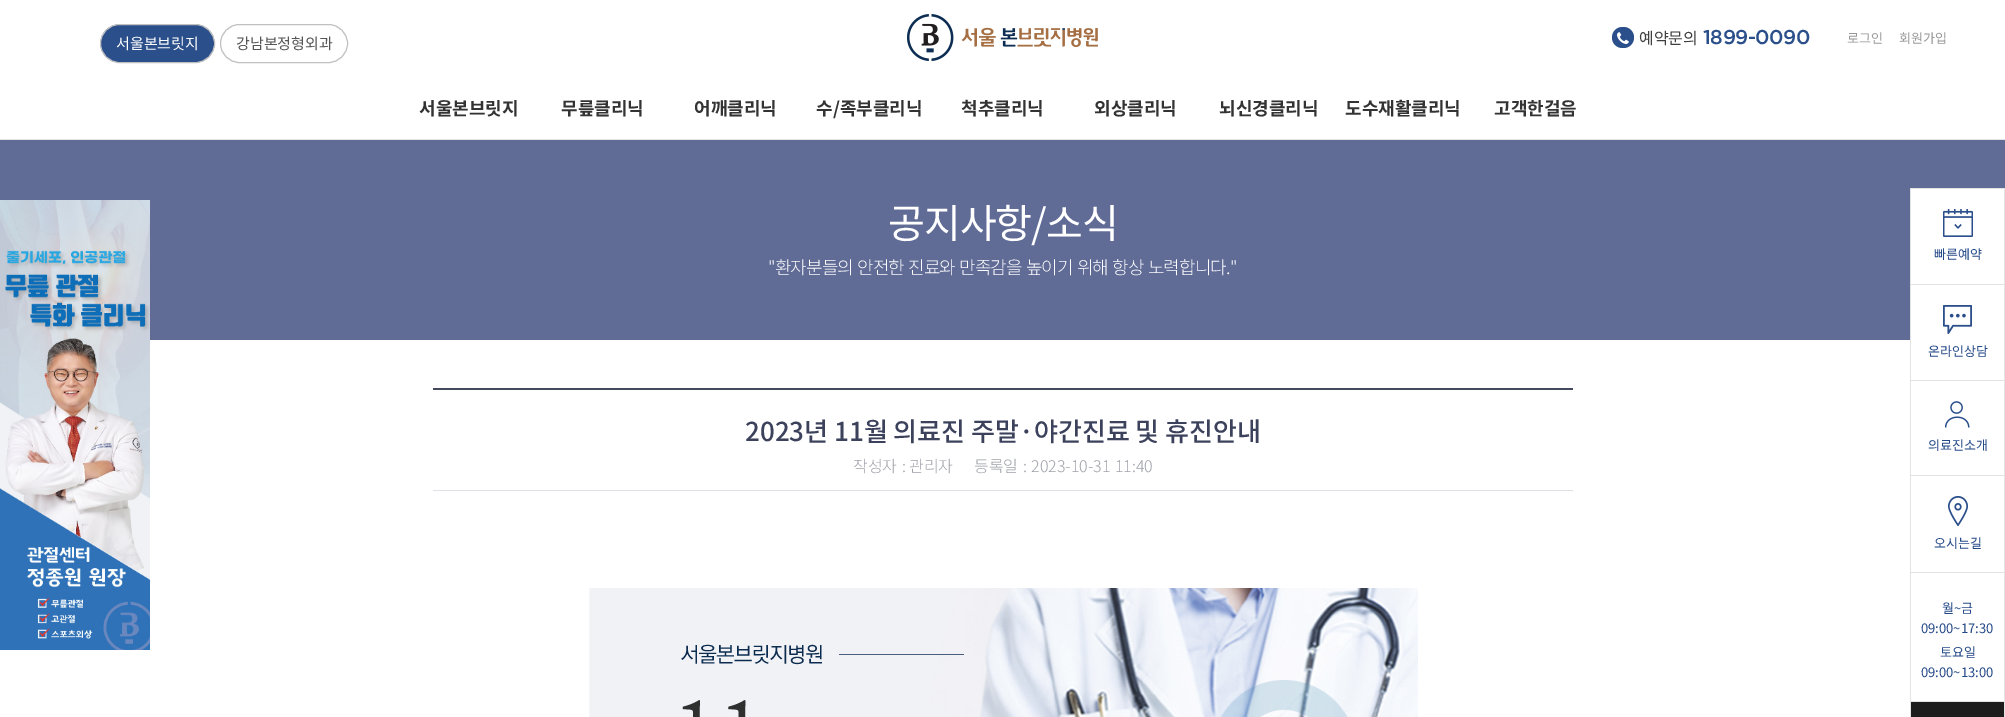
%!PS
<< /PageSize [2005 717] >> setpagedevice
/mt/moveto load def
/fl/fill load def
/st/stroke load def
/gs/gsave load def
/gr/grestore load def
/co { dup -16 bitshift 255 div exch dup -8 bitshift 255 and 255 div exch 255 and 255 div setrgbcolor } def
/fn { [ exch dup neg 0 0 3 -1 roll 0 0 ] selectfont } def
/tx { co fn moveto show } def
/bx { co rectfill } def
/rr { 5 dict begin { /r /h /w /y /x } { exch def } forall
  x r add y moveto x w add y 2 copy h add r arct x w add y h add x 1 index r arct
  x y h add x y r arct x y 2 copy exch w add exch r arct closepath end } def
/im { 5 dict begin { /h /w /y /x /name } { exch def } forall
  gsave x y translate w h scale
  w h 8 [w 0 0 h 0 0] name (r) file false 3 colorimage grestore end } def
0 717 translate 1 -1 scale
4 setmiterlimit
0 0 2005 717 16#FFFFFF bx
0 139 2005 1 16#E5E5E5 bx
16#2B4F8B co
100.5 24.5 114 38 19 rr gs fl gr
16#C1C1C1 co
st
220.5 24.5 127 38 19 rr st
(media/1.raw) 907 14 191 47 im
16#2B4F8B co
1612 27 22 21 10.5 rr fl
(media/2.raw) 1617 32 12 12 im
0 140 2005 200 16#606C96 bx
(media/3.raw) 0 200 150 450 im
433 388 1140 2 16#454A5E bx
433 490 1140 1 16#DEE2E6 bx
(media/4.raw) 589 588 829 129 im
1910 188 95 1 16#E3E3E3 bx
2004 188 1 96 16#E3E3E3 bx
1910 188 1 96 16#E3E3E3 bx
1911 189 93 95 16#FFFFFF bx
(media/5.raw) 1943 209 30 28 im
1910 284 95 1 16#E3E3E3 bx
2004 284 1 96 16#E3E3E3 bx
1910 284 1 96 16#E3E3E3 bx
1911 285 93 55 16#FFFFFF bx
(media/6.raw) 1943 305 29 29 im
1910 380 95 1 16#E3E3E3 bx
2004 380 1 95 16#E3E3E3 bx
1910 380 1 95 16#E3E3E3 bx
(media/7.raw) 1945 401 25 27 im
1910 475 95 1 16#E3E3E3 bx
2004 475 1 97 16#E3E3E3 bx
1910 475 1 97 16#E3E3E3 bx
(media/8.raw) 1948 496 20 30 im
1910 572 95 1 16#E3E3E3 bx
2004 572 1 129 16#E3E3E3 bx
1910 572 1 129 16#E3E3E3 bx
1910 701 95 1 16#E3E3E3 bx
2004 701 1 16 16#E3E3E3 bx
1910 701 1 16 16#E3E3E3 bx
1911 702 93 15 16#1C1C1C bx
(서울본브릿지) 116 49 /NotoSansKR-Regular 15 16#FFFFFF tx
(강남본정형외과) 236 49 /NotoSansKR-Regular 15 16#565656 tx
(예약문의) 1639 44 /NotoSansKR-Regular 16 16#3F3F3F tx
/Gotham-Medium 20 fn
16#2B4F8B co
1703 44 mt -.5 0 (1899-0090) ashow
(로그인) 1847 43 /NotoSansKR-Regular 13 16#989898 tx
(회원가입) 1899 43 /NotoSansKR-Regular 13 16#989898 tx
(서울본브릿지) 419 115 /NotoSansKR-Bold 18 16#333333 tx
(무릎클리닉) 561 115 /NotoSansKR-Bold 18 16#333333 tx
(어깨클리닉) 694 115 /NotoSansKR-Bold 18 16#333333 tx
(수/족부클리닉) 816 115 /NotoSansKR-Bold 18 16#333333 tx
(척추클리닉) 961 115 /NotoSansKR-Bold 18 16#333333 tx
(외상클리닉) 1094 115 /NotoSansKR-Bold 18 16#333333 tx
(뇌신경클리닉) 1219 115 /NotoSansKR-Bold 18 16#333333 tx
(도수재활클리닉) 1345 115 /NotoSansKR-Bold 18 16#333333 tx
(고객한걸음) 1494 115 /NotoSansKR-Bold 18 16#333333 tx
/NotoSansKR-Regular 40 fn
16#FFFFFF co
888 238 mt -1 0 (공지사항/소식) ashow
/NotoSansKR-Light 18 fn
768 274 mt 1 0 32 -.9 0 ("환자분들의 안전한 진료와 만족감을 높이기 위해 항상 노력합니다.") awidthshow
(2023년 11월 의료진 주말·야간진료 및 휴진안내) 745 441 /NotoSansKR-Medium 26 16#3C425C tx
/NotoSansKR-Light 16 fn
16#9EA0A9 co
853 472 mt 1 0 32 (작성자 :) widthshow
(관리자) 909 472 /NotoSansKR-Light 16 16#9EA0A9 tx
974 472 mt 1 0 32 (등록일 :) widthshow
1031 472 mt 1 0 32 (2023-10-31 11:40) widthshow
(빠른예약) 1934 259 /NotoSansKR-Regular 13 16#244988 tx
(온라인상담) 1928 356 /NotoSansKR-Regular 13 16#244988 tx
(의료진소개) 1928 450 /NotoSansKR-Regular 13 16#244988 tx
(오시는길) 1934 548 /NotoSansKR-Regular 13 16#244988 tx
(월~금) 1942 613 /NotoSansKR-Regular 13 16#244988 tx
(09:00~17:30) 1921 633 /NotoSansKR-Regular 13 16#244988 tx
(토요일) 1940 657 /NotoSansKR-Regular 13 16#244988 tx
(09:00~13:00) 1921 677 /NotoSansKR-Regular 13 16#244988 tx
showpage
